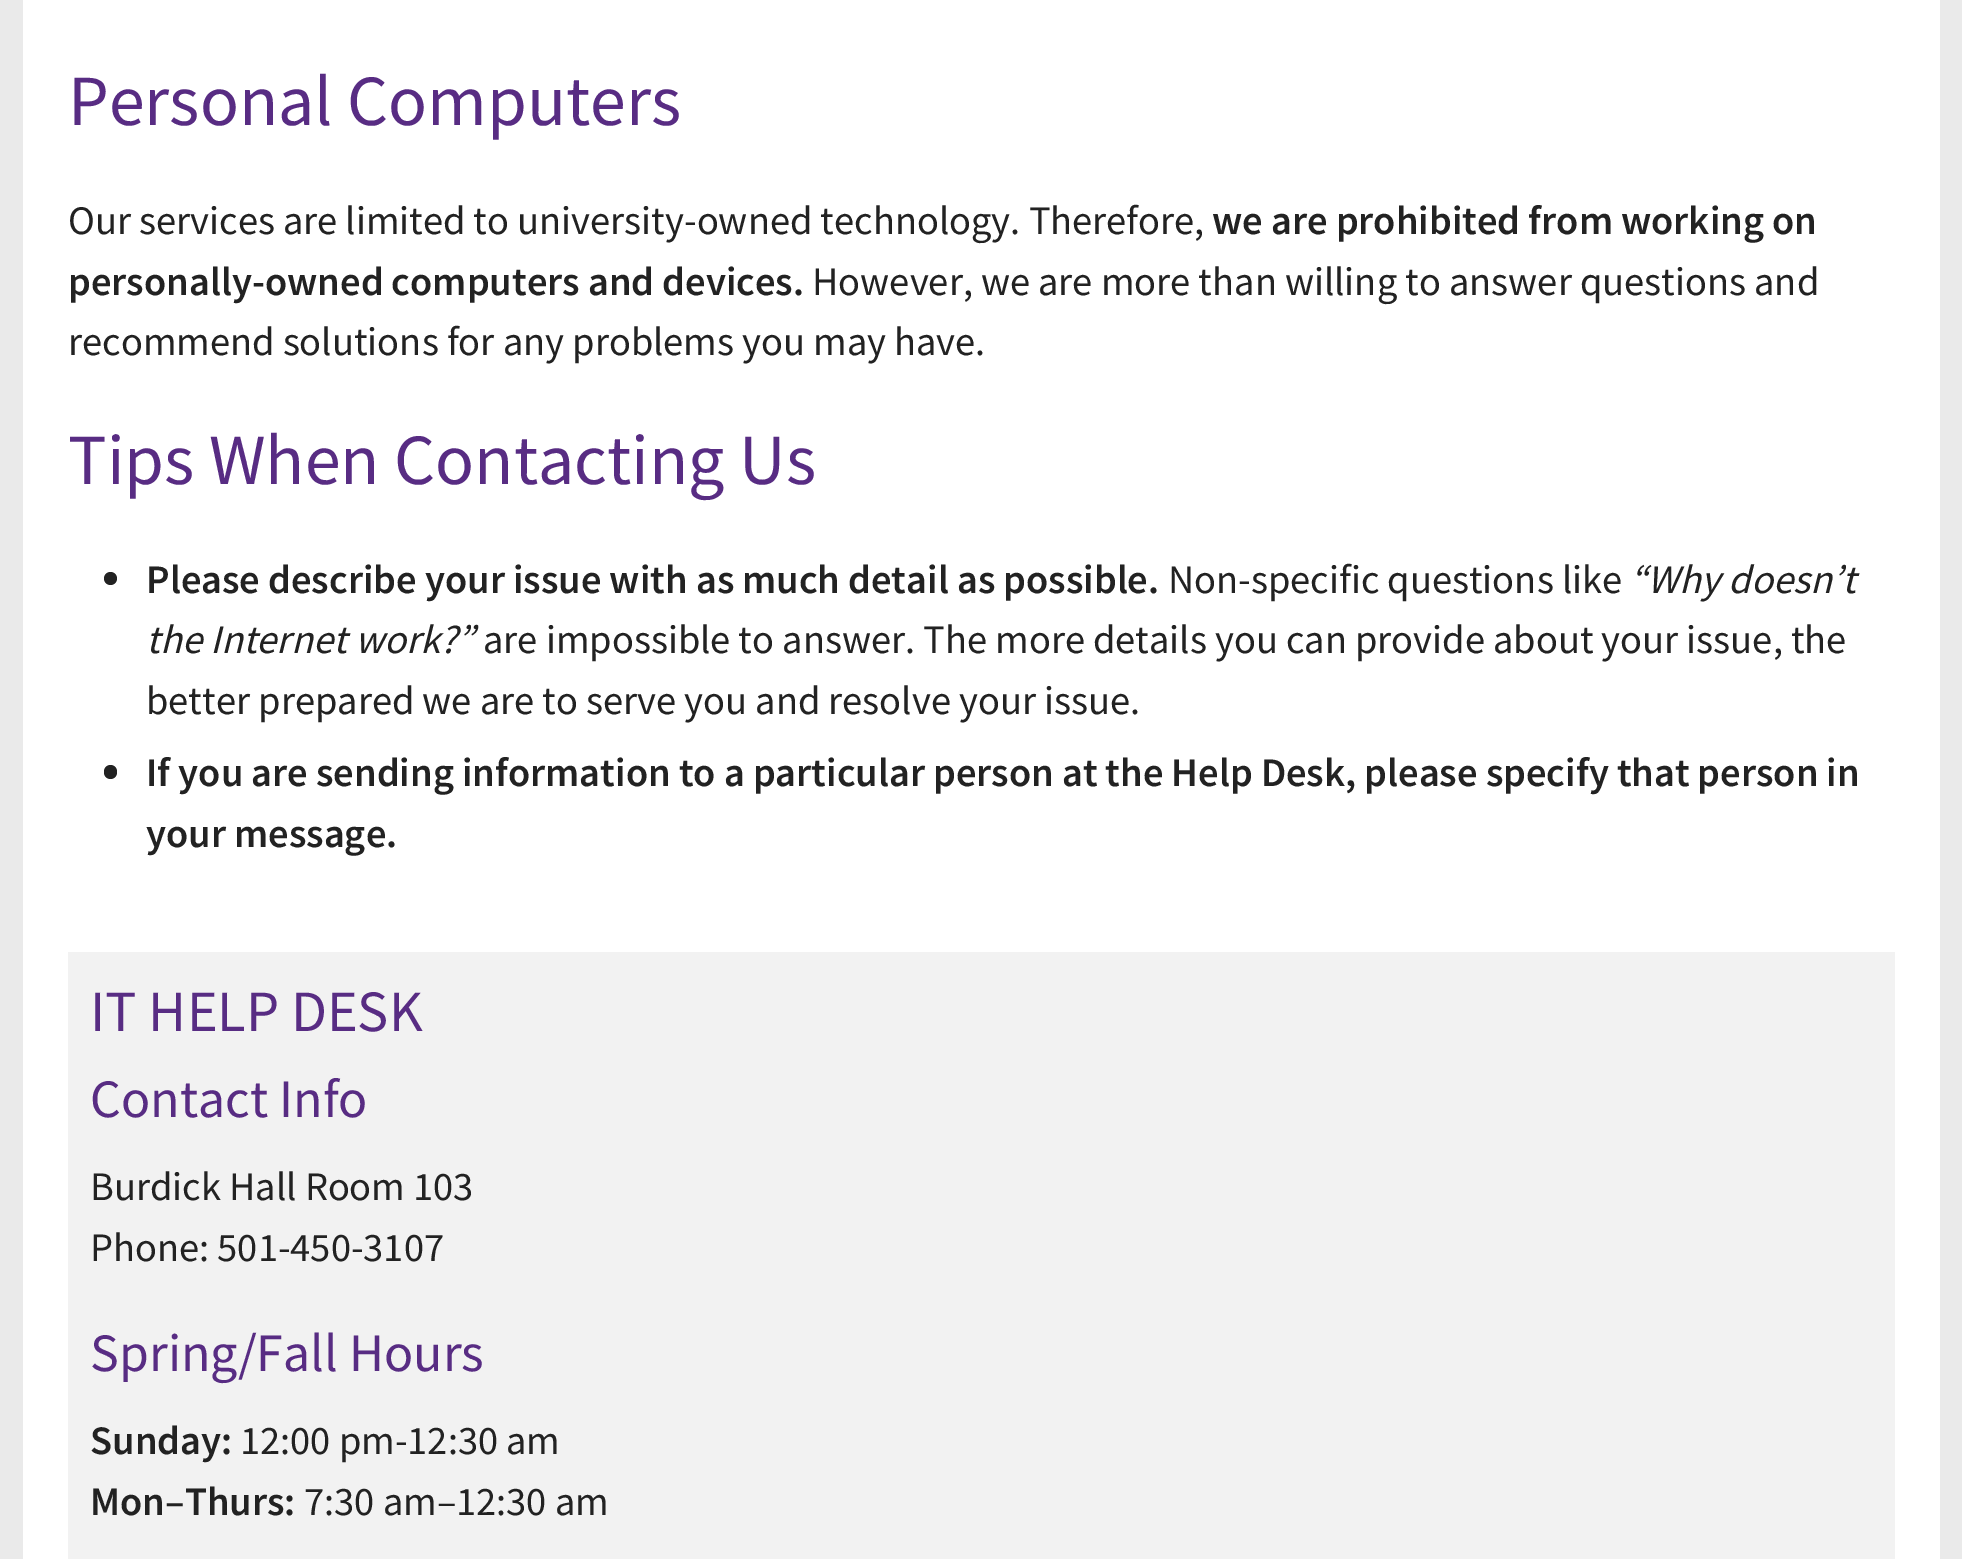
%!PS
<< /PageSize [1962 1559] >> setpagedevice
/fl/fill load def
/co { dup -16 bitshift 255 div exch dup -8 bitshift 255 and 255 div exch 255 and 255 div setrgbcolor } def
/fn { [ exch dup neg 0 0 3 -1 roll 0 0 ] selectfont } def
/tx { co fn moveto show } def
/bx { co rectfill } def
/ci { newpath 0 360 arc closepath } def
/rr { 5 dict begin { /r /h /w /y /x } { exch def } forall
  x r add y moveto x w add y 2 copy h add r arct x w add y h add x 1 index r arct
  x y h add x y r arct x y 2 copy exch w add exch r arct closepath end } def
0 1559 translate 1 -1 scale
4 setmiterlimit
0 0 1962 1559 16#EAEAEA bx
23 0 1917 1559 16#FFFFFF bx
16#222222 co
110.5 578.5 6.5 ci fl
104 765 13 14 6.5 rr fl
68 952 1827 607 16#F2F2F2 bx
(Personal Computers) 68 125 /SourceSansPro-Regular 72 16#582C83 tx
(Our services are limited to university-owned technology. Therefore,) 68 234 /SourceSansPro-Regular 40.5 16#222222 tx
(we are prohibited from working on) 1212 234 /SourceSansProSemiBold-SemiBold 40.5 16#222222 tx
(personally-owned computers and devices.) 68 295 /SourceSansProSemiBold-SemiBold 40.5 16#222222 tx
(However, we are more than willing to answer questions and) 812 295 /SourceSansPro-Regular 40.5 16#222222 tx
(recommend solutions for any problems you may have.) 68 355 /SourceSansPro-Regular 40.5 16#222222 tx
(Tips When Contacting Us) 68 484 /SourceSansPro-Regular 72 16#582C83 tx
(Please describe your issue with as much detail as possible.) 146 593 /SourceSansProSemiBold-SemiBold 40.5 16#222222 tx
(Non-specific questions like) 1168 593 /SourceSansPro-Regular 40.5 16#222222 tx
(“Why doesn’t) 1630 593 /SourceSansPro-Italic 40.5 16#222222 tx
(the Internet work?”) 146 653 /SourceSansPro-Italic 40.5 16#222222 tx
(are impossible to answer. The more details you can provide about your issue, the) 483 653 /SourceSansPro-Regular 40.5 16#222222 tx
(better prepared we are to serve you and resolve your issue.) 146 714 /SourceSansPro-Regular 40.5 16#222222 tx
(If you are sending information to a particular person at the Help Desk, please specify that person in) 146 786 /SourceSansProSemiBold-SemiBold 40.5 16#222222 tx
(your message.) 146 847 /SourceSansProSemiBold-SemiBold 40.5 16#222222 tx
(IT HELP DESK) 90 1031 /SourceSansPro-Regular 58.5 16#582C83 tx
(Contact Info) 90 1117 /SourceSansPro-Regular 54 16#582C83 tx
(Burdick Hall Room 103) 90 1200 /SourceSansPro-Regular 40.5 16#222222 tx
(Phone: 501-450-3107) 90 1261 /SourceSansPro-Regular 40.5 16#222222 tx
(Spring/Fall Hours) 90 1371 /SourceSansPro-Regular 54 16#582C83 tx
(Sunday:) 90 1454 /SourceSansProSemiBold-SemiBold 40.5 16#222222 tx
(12:00 pm-12:30 am) 240 1454 /SourceSansPro-Regular 40.5 16#222222 tx
(Mon–Thurs:) 90 1515 /SourceSansProSemiBold-SemiBold 40.5 16#222222 tx
(7:30 am–12:30 am) 304 1515 /SourceSansPro-Regular 40.5 16#222222 tx
showpage
